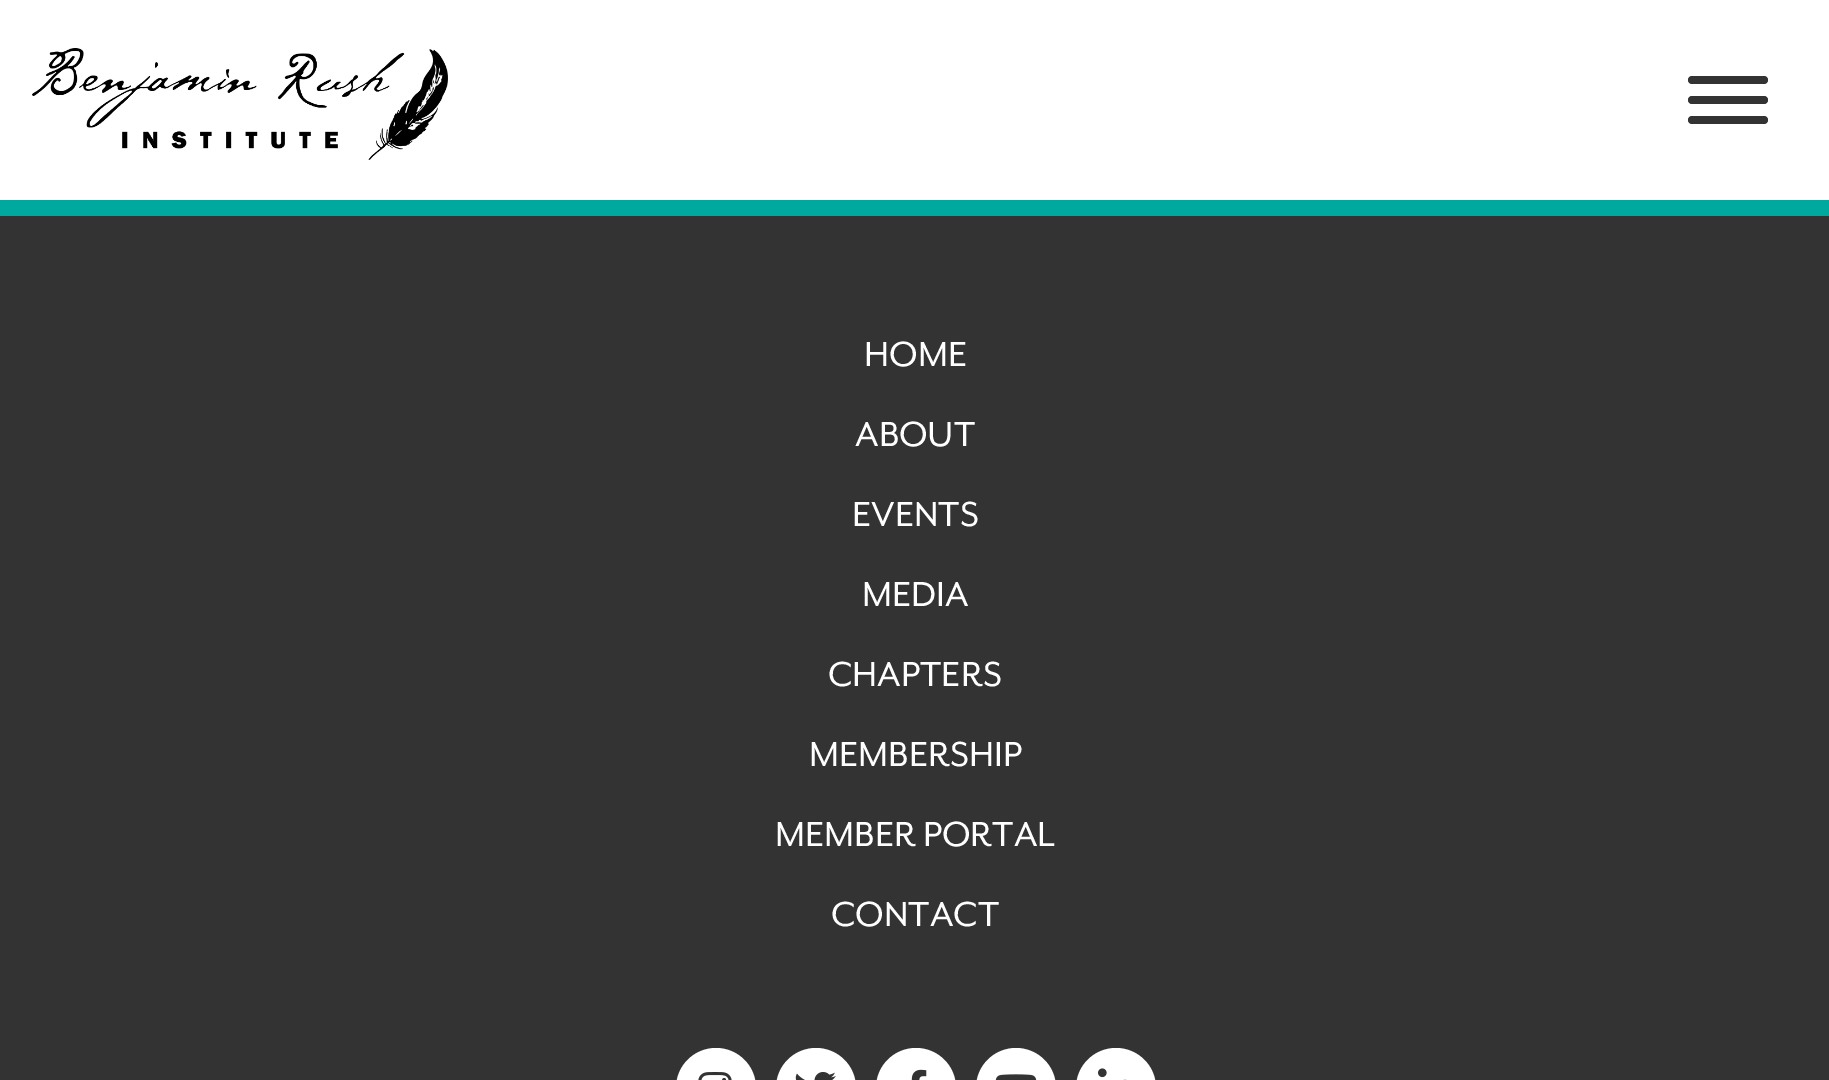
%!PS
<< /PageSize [1829 1080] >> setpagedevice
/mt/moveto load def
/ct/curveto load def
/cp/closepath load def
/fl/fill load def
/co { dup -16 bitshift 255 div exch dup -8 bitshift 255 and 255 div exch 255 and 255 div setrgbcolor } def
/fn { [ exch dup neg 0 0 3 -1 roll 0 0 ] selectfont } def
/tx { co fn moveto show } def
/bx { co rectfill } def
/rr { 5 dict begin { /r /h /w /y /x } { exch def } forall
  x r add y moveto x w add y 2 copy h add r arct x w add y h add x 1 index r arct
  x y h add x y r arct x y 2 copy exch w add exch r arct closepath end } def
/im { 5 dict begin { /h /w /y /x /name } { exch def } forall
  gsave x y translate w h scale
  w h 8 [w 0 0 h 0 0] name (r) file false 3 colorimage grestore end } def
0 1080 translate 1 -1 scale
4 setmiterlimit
0 0 1829 1080 16#FFFFFF bx
(media/1.raw) 32 48 416 112 im
16#333333 co
1688 96 80 8 4 rr fl
1688 76 80 8 4 rr fl
1688 116 80 8 4 rr fl
0 216 1829 864 16#333333 bx
0 200 1829 16 16#00A99D bx
16#FFFFFF co
716 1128 mt 738 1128 756 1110 756 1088 ct 756 1066 738 1048 716 1048 ct 694 1048 676 1066 676 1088 ct 676 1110 694 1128 716 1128 ct cp fl
(media/2.raw) 698 1072 34 8 im
816 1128 mt 838 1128 856 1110 856 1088 ct 856 1066 838 1048 816 1048 ct 794 1048 776 1066 776 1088 ct 776 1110 794 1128 816 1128 ct cp fl
(media/3.raw) 795 1072 41 8 im
916 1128 mt 938 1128 956 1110 956 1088 ct 956 1066 938 1048 916 1048 ct 894 1048 876 1066 876 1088 ct 876 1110 894 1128 916 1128 ct cp fl
(media/4.raw) 911 1069 16 11 im
1016 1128 mt 1038 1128 1056 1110 1056 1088 ct 1056 1066 1038 1048 1016 1048 ct 994 1048 976 1066 976 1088 ct 976 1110 994 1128 1016 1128 ct cp fl
(media/5.raw) 995 1074 42 6 im
1116 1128 mt 1138 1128 1156 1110 1156 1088 ct 1156 1066 1138 1048 1116 1048 ct 1094 1048 1076 1066 1076 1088 ct 1076 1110 1094 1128 1116 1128 ct cp fl
(media/6.raw) 1098 1068 29 12 im
(HOME) 864 366 /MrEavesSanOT-Regular 40 16#FFFFFF tx
(ABOUT) 855 446 /MrEavesSanOT-Regular 40 16#FFFFFF tx
(EVENTS) 852 526 /MrEavesSanOT-Regular 40 16#FFFFFF tx
(MEDIA) 862 606 /MrEavesSanOT-Regular 40 16#FFFFFF tx
(CHAPTERS) 828 686 /MrEavesSanOT-Regular 40 16#FFFFFF tx
(MEMBERSHIP) 809 766 /MrEavesSanOT-Regular 40 16#FFFFFF tx
(MEMBER PORTAL) 775 846 /MrEavesSanOT-Regular 40 16#FFFFFF tx
(CONTACT) 831 926 /MrEavesSanOT-Regular 40 16#FFFFFF tx
showpage
